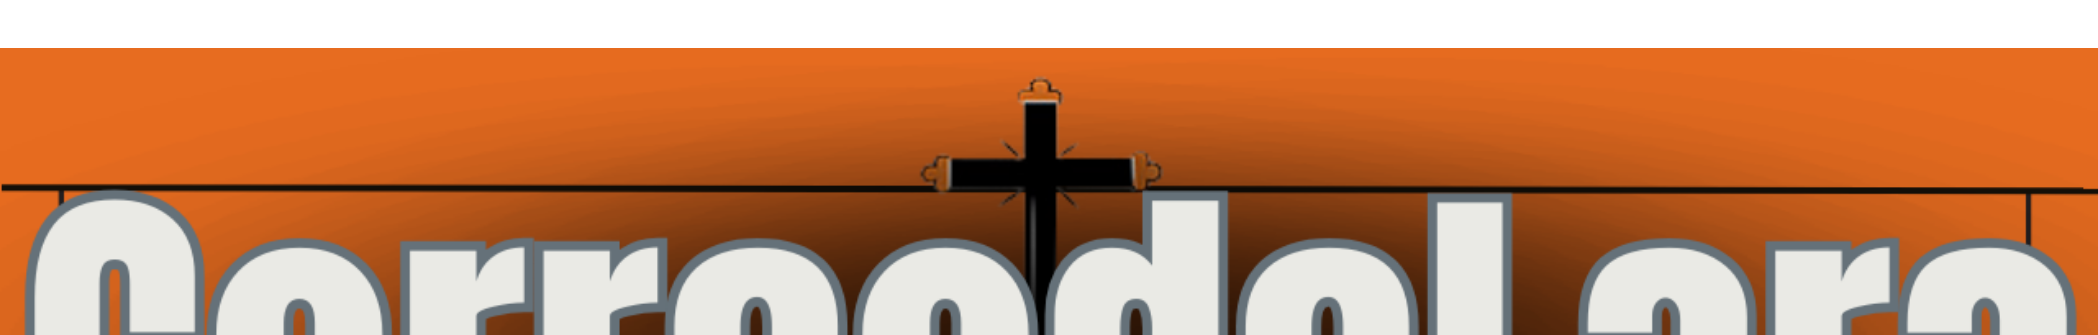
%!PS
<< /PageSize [2098 335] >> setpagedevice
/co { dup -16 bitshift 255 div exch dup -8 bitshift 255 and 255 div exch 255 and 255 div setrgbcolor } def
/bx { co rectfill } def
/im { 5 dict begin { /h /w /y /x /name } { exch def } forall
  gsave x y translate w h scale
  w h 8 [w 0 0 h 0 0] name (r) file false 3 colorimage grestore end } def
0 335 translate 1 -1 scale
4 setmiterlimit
0 0 2098 335 16#FFFFFF bx
(media/1.raw) 0 48 2098 287 im
showpage
